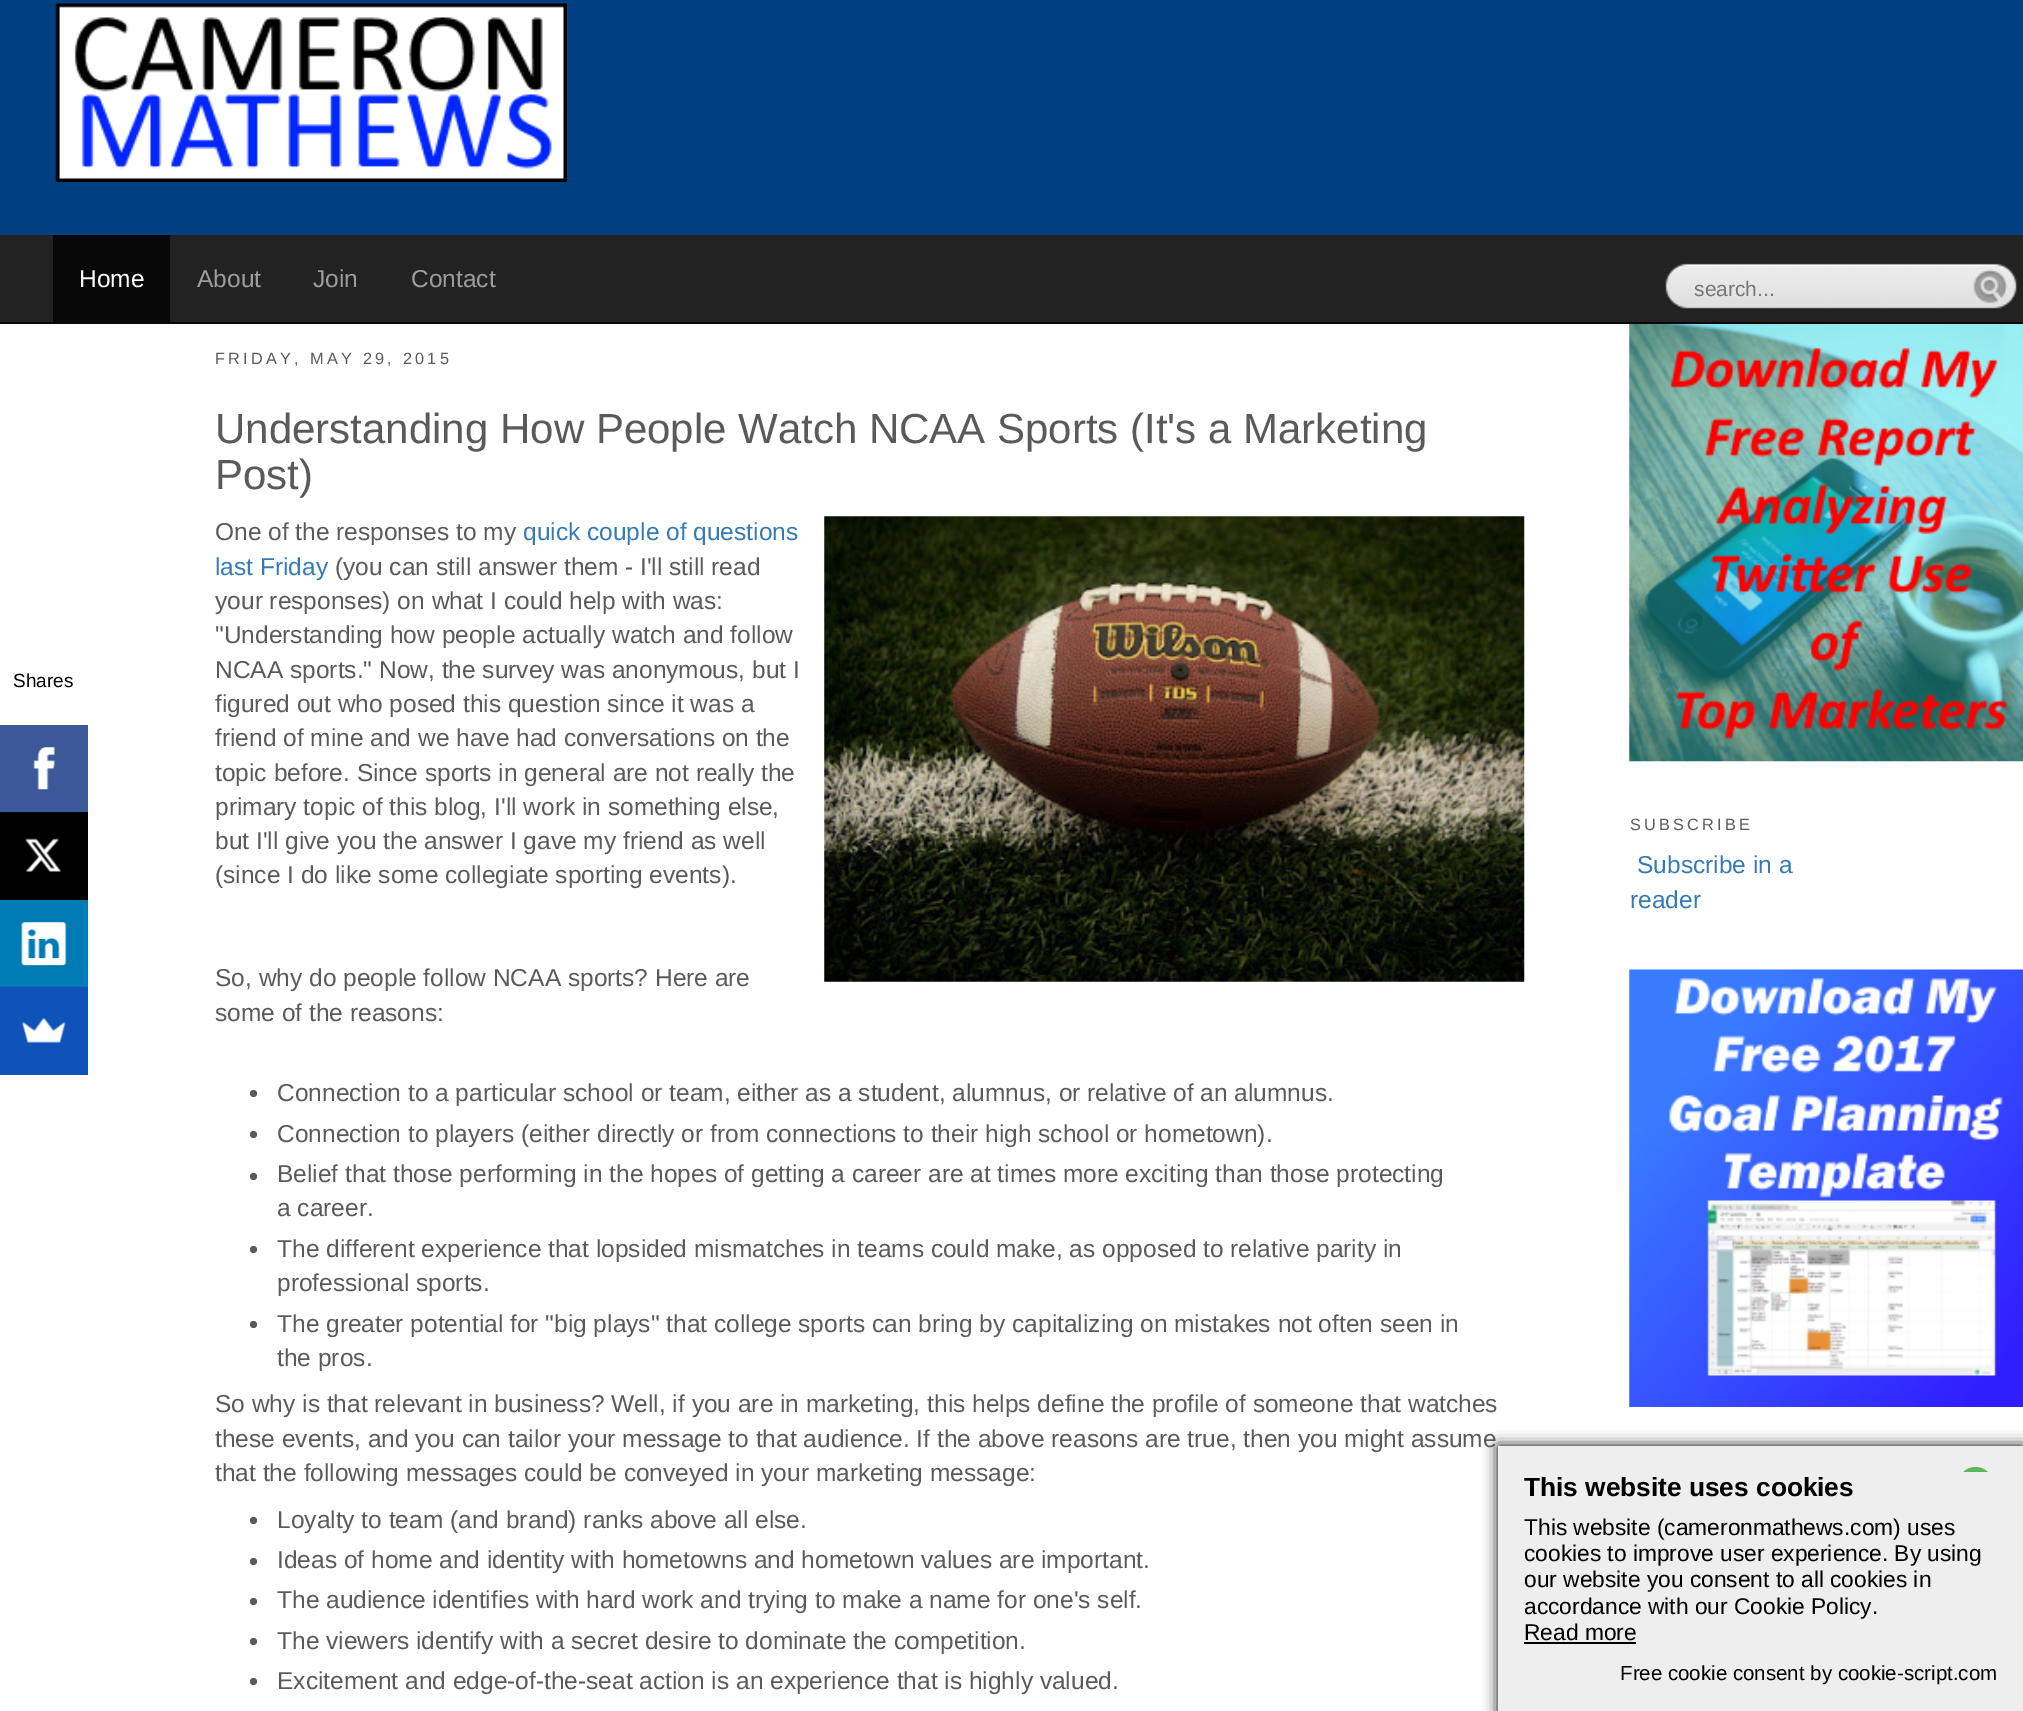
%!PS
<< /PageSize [2023 1711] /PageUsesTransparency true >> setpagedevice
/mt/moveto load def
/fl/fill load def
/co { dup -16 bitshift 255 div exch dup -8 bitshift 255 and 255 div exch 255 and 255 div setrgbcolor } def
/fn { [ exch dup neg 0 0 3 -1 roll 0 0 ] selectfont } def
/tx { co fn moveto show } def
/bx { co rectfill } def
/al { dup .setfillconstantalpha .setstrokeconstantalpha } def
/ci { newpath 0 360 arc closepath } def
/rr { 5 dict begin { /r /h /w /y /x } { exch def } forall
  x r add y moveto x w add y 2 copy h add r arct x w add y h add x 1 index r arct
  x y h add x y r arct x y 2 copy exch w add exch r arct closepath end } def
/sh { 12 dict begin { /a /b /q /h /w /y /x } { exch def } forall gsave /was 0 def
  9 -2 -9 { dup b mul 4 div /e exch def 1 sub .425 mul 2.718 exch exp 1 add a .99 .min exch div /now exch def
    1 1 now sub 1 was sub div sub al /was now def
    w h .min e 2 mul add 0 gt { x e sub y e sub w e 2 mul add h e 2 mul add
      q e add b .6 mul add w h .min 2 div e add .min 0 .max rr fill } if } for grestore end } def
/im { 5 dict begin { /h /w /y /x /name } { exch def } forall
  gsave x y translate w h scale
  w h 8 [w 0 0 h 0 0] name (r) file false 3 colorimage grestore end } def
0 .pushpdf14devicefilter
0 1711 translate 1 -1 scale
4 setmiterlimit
0 0 2023 1711 16#FFFFFF bx
0 0 2023 235 16#004080 bx
(media/1.raw) 55 3 512 179 im
0 235 2023 87 16#222222 bx
0 322 2023 2 16#080808 bx
53 235 117 87 16#080808 bx
(media/2.raw) 1665 263 352 47 im
(media/3.raw) 1973 269 35 35 im
0 725 88 87 16#3B5998 bx
(media/4.raw) 33 747 22 43 im
0 812 88 88 16#000000 bx
(media/5.raw) 25 838 36 34 im
0 900 88 87 16#007BB6 bx
(media/6.raw) 21 922 46 44 im
0 987 88 88 16#0F52BA bx
(media/7.raw) 22 1018 44 25 im
(media/8.raw) 824 516 701 466 im
16#5A5A5A co
253.5 1093.5 3.5 ci fl
253.5 1134.5 3.5 ci fl
253.5 1176.5 3.5 ci fl
253.5 1249.5 3.5 ci fl
253.5 1324.5 3.5 ci fl
253.5 1520.5 3.5 ci fl
253.5 1561.5 3.5 ci fl
253.5 1601.5 3.5 ci fl
253.5 1641.5 3.5 ci fl
253.5 1681.5 3.5 ci fl
(media/9.raw) 1629 324 394 438 im
(media/10.raw) 1629 969 394 438 im
16#000000 co
1498 1446 525 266 0 7 1 sh
1498 1446 525 265 16#EEEEEE bx
16#5BB75B co
1975.5 1484.5 17.5 ci fl
1958 1472 35 30 16#EEEEEE bx
1524 1642 112 2 16#000000 bx
(Home) 79 287 /LiberationSans-Regular 24.5 16#FFFFFF tx
(About) 197 287 /LiberationSans-Regular 24.5 16#9D9D9D tx
(Join) 313 287 /LiberationSans-Regular 24.5 16#9D9D9D tx
(Contact) 411 287 /LiberationSans-Regular 24.5 16#9D9D9D tx
(search...) 1694 296 /LiberationSans-Regular 21 16#757575 tx
(Shares) 13 687 /LiberationSans-Regular 19 16#000000 tx
/LiberationSans-Regular 16.3 fn
16#5A5A5A co
215 364 mt 3.25 0 (FRIDAY, MAY 29, 2015) ashow
(Understanding How People Watch NCAA Sports \(It's a Marketing) 215 443 /LiberationSans-Regular 42 16#5A5A5A tx
(Post\)) 215 489 /LiberationSans-Regular 42 16#5A5A5A tx
(One of the responses to my) 215 540 /LiberationSans-Regular 24.5 16#5A5A5A tx
(quick couple of questions) 523 540 /LiberationSans-Regular 24.5 16#337AB7 tx
(last Friday) 215 575 /LiberationSans-Regular 24.5 16#337AB7 tx
(\(you can still answer them - I'll still read) 335 575 /LiberationSans-Regular 24.5 16#5A5A5A tx
(your responses\) on what I could help with was:) 215 609 /LiberationSans-Regular 24.5 16#5A5A5A tx
("Understanding how people actually watch and follow) 215 643 /LiberationSans-Regular 24.5 16#5A5A5A tx
(NCAA sports." Now, the survey was anonymous, but I) 215 678 /LiberationSans-Regular 24.5 16#5A5A5A tx
(figured out who posed this question since it was a) 215 712 /LiberationSans-Regular 24.5 16#5A5A5A tx
(friend of mine and we have had conversations on the) 215 746 /LiberationSans-Regular 24.5 16#5A5A5A tx
(topic before. Since sports in general are not really the) 215 781 /LiberationSans-Regular 24.5 16#5A5A5A tx
(primary topic of this blog, I'll work in something else,) 215 815 /LiberationSans-Regular 24.5 16#5A5A5A tx
(but I'll give you the answer I gave my friend as well) 215 849 /LiberationSans-Regular 24.5 16#5A5A5A tx
(\(since I do like some collegiate sporting events\).) 215 883 /LiberationSans-Regular 24.5 16#5A5A5A tx
(So, why do people follow NCAA sports? Here are) 215 986 /LiberationSans-Regular 24.5 16#5A5A5A tx
(some of the reasons:) 215 1021 /LiberationSans-Regular 24.5 16#5A5A5A tx
(Connection to a particular school or team, either as a student, alumnus, or relative of an alumnus.) 277 1101 /LiberationSans-Regular 24.5 16#5A5A5A tx
(Connection to players \(either directly or from connections to their high school or hometown\).) 277 1142 /LiberationSans-Regular 24.5 16#5A5A5A tx
(Belief that those performing in the hopes of getting a career are at times more exciting than those protecting) 277 1182 /LiberationSans-Regular 24.5 16#5A5A5A tx
(a career.) 277 1216 /LiberationSans-Regular 24.5 16#5A5A5A tx
(The different experience that lopsided mismatches in teams could make, as opposed to relative parity in) 277 1257 /LiberationSans-Regular 24.5 16#5A5A5A tx
(professional sports.) 277 1291 /LiberationSans-Regular 24.5 16#5A5A5A tx
(The greater potential for "big plays" that college sports can bring by capitalizing on mistakes not often seen in) 277 1332 /LiberationSans-Regular 24.5 16#5A5A5A tx
(the pros.) 277 1366 /LiberationSans-Regular 24.5 16#5A5A5A tx
(So why is that relevant in business? Well, if you are in marketing, this helps define the profile of someone that watches) 215 1412 /LiberationSans-Regular 24.5 16#5A5A5A tx
(these events, and you can tailor your message to that audience. If the above reasons are true, then you might assume) 215 1447 /LiberationSans-Regular 24.5 16#5A5A5A tx
(that the following messages could be conveyed in your marketing message:) 215 1481 /LiberationSans-Regular 24.5 16#5A5A5A tx
(Loyalty to team \(and brand\) ranks above all else.) 277 1528 /LiberationSans-Regular 24.5 16#5A5A5A tx
(Ideas of home and identity with hometowns and hometown values are important.) 277 1568 /LiberationSans-Regular 24.5 16#5A5A5A tx
(The audience identifies with hard work and trying to make a name for one's self.) 277 1608 /LiberationSans-Regular 24.5 16#5A5A5A tx
(The viewers identify with a secret desire to dominate the competition.) 277 1649 /LiberationSans-Regular 24.5 16#5A5A5A tx
(Excitement and edge-of-the-seat action is an experience that is highly valued.) 277 1689 /LiberationSans-Regular 24.5 16#5A5A5A tx
/LiberationSans-Regular 16.3 fn
1630 830 mt 3.25 0 (SUBSCRIBE) ashow
(Subscribe in a) 1637 873 /LiberationSans-Regular 24.5 16#337AB7 tx
(reader) 1630 908 /LiberationSans-Regular 24.5 16#337AB7 tx
(This website uses cookies) 1524 1496 /LiberationSans-Bold 26.25 16#000000 tx
(This website \(cameronmathews.com\) uses) 1524 1535 /LiberationSans-Regular 22.75 16#000000 tx
(cookies to improve user experience. By using) 1524 1561 /LiberationSans-Regular 22.75 16#000000 tx
(our website you consent to all cookies in) 1524 1587 /LiberationSans-Regular 22.75 16#000000 tx
(accordance with our Cookie Policy.) 1524 1614 /LiberationSans-Regular 22.75 16#000000 tx
(Read more) 1524 1640 /LiberationSans-Regular 22.75 16#000000 tx
(Free cookie consent by cookie-script.com) 1620 1680 /LiberationSans-Regular 20.5 16#000000 tx
.poppdf14devicefilter showpage
